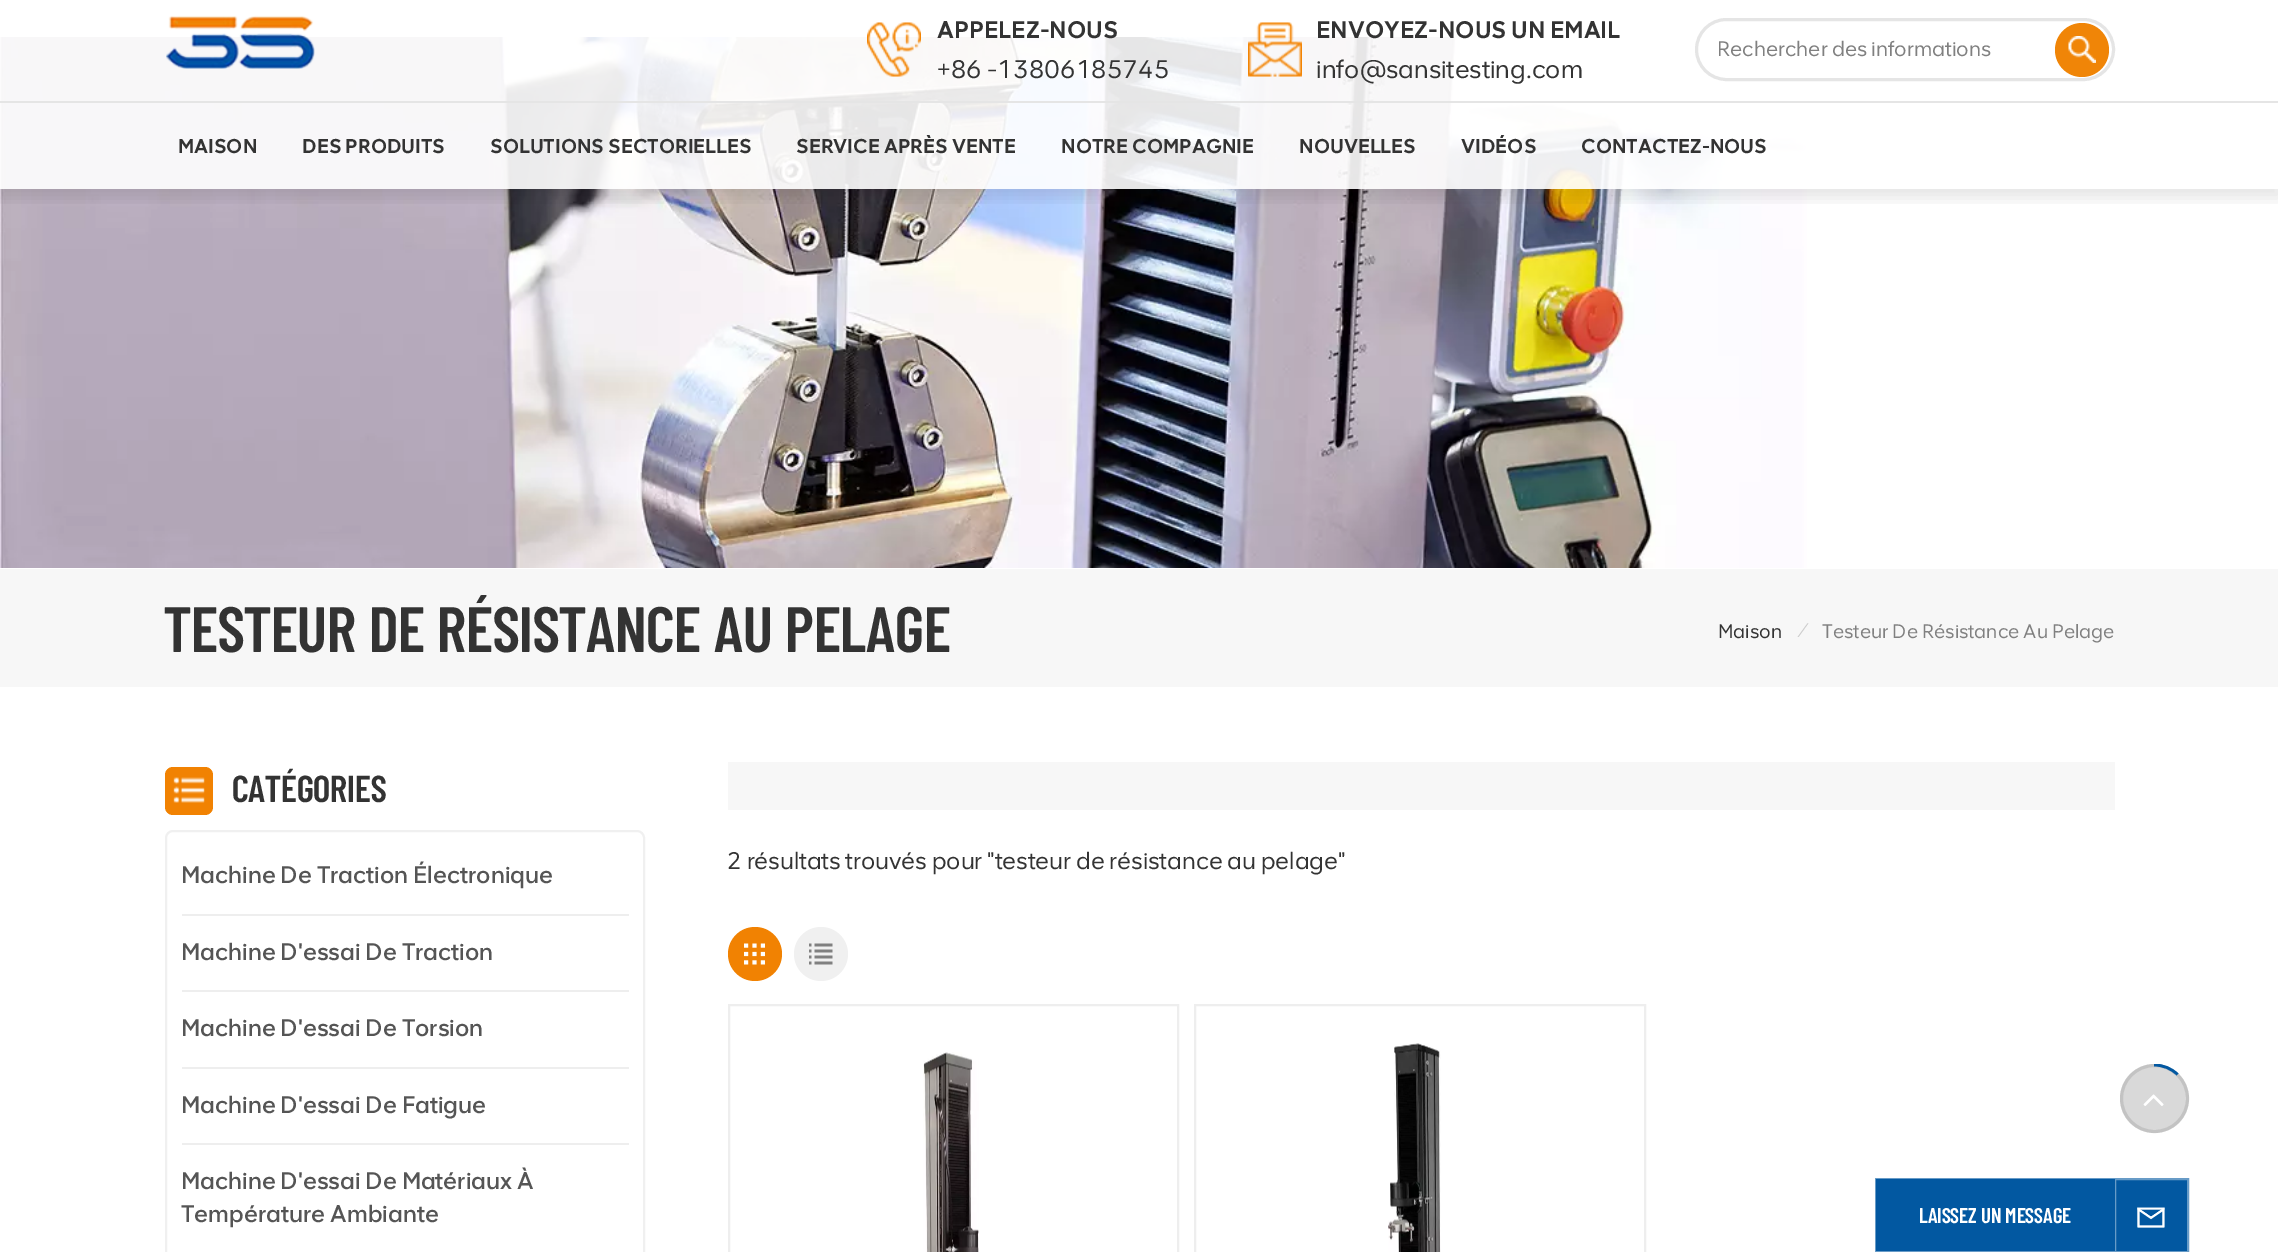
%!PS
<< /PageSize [2278 1252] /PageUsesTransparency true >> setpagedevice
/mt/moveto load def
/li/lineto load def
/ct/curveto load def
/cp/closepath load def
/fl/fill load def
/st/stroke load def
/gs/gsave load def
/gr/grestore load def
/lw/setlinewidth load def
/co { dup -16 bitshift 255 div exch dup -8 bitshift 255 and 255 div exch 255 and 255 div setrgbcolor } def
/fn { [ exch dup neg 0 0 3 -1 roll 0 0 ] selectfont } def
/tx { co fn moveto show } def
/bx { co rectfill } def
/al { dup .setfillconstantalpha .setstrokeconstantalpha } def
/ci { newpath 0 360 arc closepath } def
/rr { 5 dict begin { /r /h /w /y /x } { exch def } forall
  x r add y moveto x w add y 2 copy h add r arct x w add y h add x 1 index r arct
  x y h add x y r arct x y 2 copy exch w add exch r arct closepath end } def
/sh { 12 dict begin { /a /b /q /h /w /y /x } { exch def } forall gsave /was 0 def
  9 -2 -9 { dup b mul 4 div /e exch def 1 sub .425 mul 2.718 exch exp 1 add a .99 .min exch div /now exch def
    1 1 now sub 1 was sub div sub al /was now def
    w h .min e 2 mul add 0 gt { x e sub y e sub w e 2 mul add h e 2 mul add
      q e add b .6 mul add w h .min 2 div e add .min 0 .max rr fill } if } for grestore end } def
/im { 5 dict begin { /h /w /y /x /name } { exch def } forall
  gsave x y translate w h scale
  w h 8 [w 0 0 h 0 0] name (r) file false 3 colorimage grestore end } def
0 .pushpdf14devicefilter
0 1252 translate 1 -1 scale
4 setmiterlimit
0 0 2278 1252 16#FFFFFF bx
(media/5.raw) 0 37 1807 531 im
gs
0 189 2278 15 rectclip
16#000000 co
-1 6 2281 192 0 7.5 .1 sh
gr
0.9 al
0 37 1807 152 16#FFFFFF bx
1 al
(media/1.raw) 166 15 149 54 im
(media/2.raw) 867 22 54 55 im
(media/3.raw) 1248 22 54 55 im
16#E5E5E5 co
3 lw
1696.5 19.5 417 60 30 rr st
16#F08507 co
2082 50 27 ci fl
(media/4.raw) 2068 36 28 27 im
0 101 2278 2 16#E5E5E5 bx
0 569 2278 118 16#F7F7F7 bx
16#F18202 co
165 767 48 48 8 rr fl
(media/6.raw) 173 777 32 26 im
16#F0F0F0 co
2 lw
166 831 478 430 7 rr st
182 914 447 2 16#EEEEEE bx
182 990 447 2 16#EEEEEE bx
182 1067 447 2 16#EEEEEE bx
182 1143 447 2 16#EEEEEE bx
728 762 1387 48 16#F7F7F7 bx
16#F18202 co
755 954 27 ci fl
(media/7.raw) 744 943 21 22 im
16#F0F0F0 co
821 954 27 ci fl
(media/8.raw) 809 943 24 22 im
16#EEEEEE co
729 1005 449 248 rectstroke
(media/9.raw) 923 1052 56 200 im
1195 1005 450 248 rectstroke
(media/10.raw) 1388 1043 53 209 im
16#D9D9D9 co
2154.5 1098.5 34.5 ci fl
0.1 al
16#000000 co
3 lw
2154.5 1098.5 33 ci st
gs
2120 1064 69 69 rectclip
1 al
16#0258A1 co
2.7 lw
2154 1065 mt 2163 1065 2171.5 1068.5 2177.5 1074.5 ct st
gr
1 al
(media/11.raw) 2143 1094 21 12 im
16#0258A1 co
2115 1179 mt 2188 1179 li 2188 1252 li 2115 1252 li cp gs fl gr
16#679BC7 co
2 lw
st
1875 1178 240 74 16#0258A1 bx
16#679BC7 co
1875 1178 mt 2115 1178 li 2115 1179 li 1876 1179 li cp fl
2115 1252 mt 1875 1252 li 1876 1251 li 2115 1251 li cp fl
0.4 al
16#FFFFFF co
1875 1252 mt 1875 1178 li 1876 1179 li 1876 1251 li cp fl
1 al
(media/12.raw) 2137 1207 28 21 im
(APPELEZ-NOUS) 937 38 /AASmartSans-Bold 24 16#333333 tx
(+86 -13806185745) 937 78 /AASmartSans-Regular 25.5 16#333333 tx
(ENVOYEZ-NOUS UN EMAIL) 1316 38 /AASmartSans-Bold 24 16#333333 tx
(info@sansitesting.com) 1316 78 /AASmartSans-Regular 25.5 16#333333 tx
(Rechercher des informations) 1717 56 /AASmartSans-Regular 21 16#808080 tx
(MAISON) 178 153 /AASmartSans-Bold 20 16#333333 tx
(DES PRODUITS) 302 153 /AASmartSans-Bold 20 16#333333 tx
(SOLUTIONS SECTORIELLES) 490 153 /AASmartSans-Bold 20 16#333333 tx
(SERVICE APRÈS VENTE) 796 153 /AASmartSans-Bold 20 16#333333 tx
(NOTRE COMPAGNIE) 1061 153 /AASmartSans-Bold 20 16#333333 tx
(NOUVELLES) 1299 153 /AASmartSans-Bold 20 16#333333 tx
(VIDÉOS) 1461 153 /AASmartSans-Bold 20 16#333333 tx
(CONTACTEZ-NOUS) 1581 153 /AASmartSans-Bold 20 16#333333 tx
(TESTEUR DE RÉSISTANCE AU PELAGE) 164 652 /BarlowCondensed-SemiBold 64 16#333333 tx
(Maison) 1718 638 /AASmartSans-Regular 19.5 16#333333 tx
(/) 1797 637 /AASmartSans-Italic 19.5 16#CCCCCC tx
(Testeur De Résistance Au Pelage) 1822 638 /AASmartSans-Regular 19.5 16#808080 tx
(CATÉGORIES) 232 802 /BarlowCondensed-SemiBold 37.5 16#333333 tx
(Machine De Traction Électronique) 181 883 /AASmartSans-SemiBold 24 16#555555 tx
(Machine D'essai De Traction) 181 960 /AASmartSans-SemiBold 24 16#555555 tx
(Machine D'essai De Torsion) 181 1036 /AASmartSans-SemiBold 24 16#555555 tx
(Machine D'essai De Fatigue) 181 1113 /AASmartSans-SemiBold 24 16#555555 tx
(Machine D'essai De Matériaux À) 181 1189 /AASmartSans-SemiBold 24 16#555555 tx
(Température Ambiante) 181 1222 /AASmartSans-SemiBold 24 16#555555 tx
(2 résultats trouvés pour "testeur de résistance au pelage") 727 869 /AASmartSans-Regular 24 16#333333 tx
(LAISSEZ UN MESSAGE) 1919 1223 /BarlowCondensed-SemiBold 21.25 16#FFFFFF tx
.poppdf14devicefilter showpage
